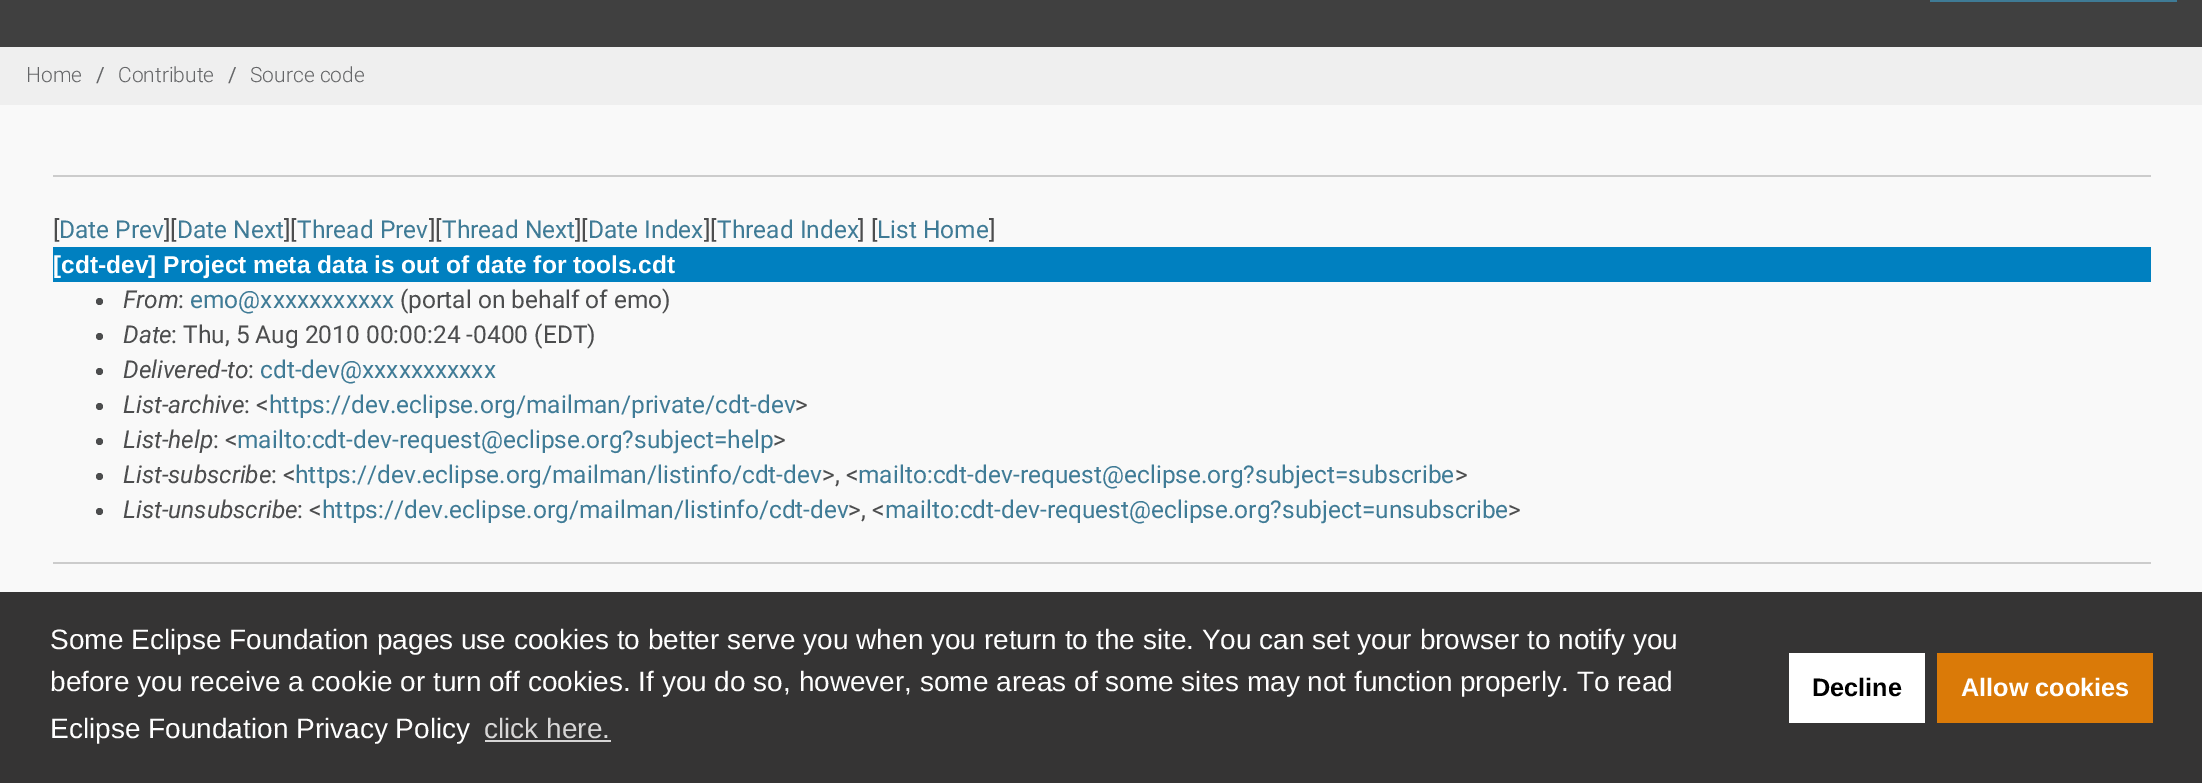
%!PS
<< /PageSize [2202 783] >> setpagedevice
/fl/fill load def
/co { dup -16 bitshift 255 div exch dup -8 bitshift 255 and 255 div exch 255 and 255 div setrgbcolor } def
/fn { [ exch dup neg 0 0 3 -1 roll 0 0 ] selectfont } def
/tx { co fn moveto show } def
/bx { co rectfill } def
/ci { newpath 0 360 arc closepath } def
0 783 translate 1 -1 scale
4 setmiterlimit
0 0 2202 783 16#F9F9F9 bx
0 0 2202 47 16#404040 bx
1930 0 247 2 16#3F7B96 bx
0 47 2202 58 16#EFEFEF bx
53 175 2098 2 16#CCCCCC bx
53 247 2098 35 16#0080C0 bx
16#4C4D4E co
99.5 301.5 3.5 ci fl
99.5 336.5 3.5 ci fl
99.5 371.5 3.5 ci fl
99.5 406.5 3.5 ci fl
99.5 441.5 3.5 ci fl
99.5 476.5 3.5 ci fl
99.5 511.5 3.5 ci fl
53 562 2098 2 16#CCCCCC bx
0 592 2202 191 16#353434 bx
485 740 126 2 16#D7D6D6 bx
1789 653 136 70 16#FFFFFF bx
1937 653 216 70 16#DA7A08 bx
(Home) 26 82 /Roboto-Light 21 16#656668 tx
(/) 96 82 /Roboto-Regular 21 16#656668 tx
(Contribute) 118 82 /Roboto-Light 21 16#656668 tx
(/) 228 82 /Roboto-Regular 21 16#656668 tx
(Source code) 250 82 /Roboto-Light 21 16#656668 tx
([) 53 238 /Roboto-Regular 24.5 16#4C4D4E tx
(Date Prev) 59 238 /Roboto-Regular 24.5 16#3F7B96 tx
(][) 164 238 /Roboto-Regular 24.5 16#4C4D4E tx
(Date Next) 177 238 /Roboto-Regular 24.5 16#3F7B96 tx
(][) 284 238 /Roboto-Regular 24.5 16#4C4D4E tx
(Thread Prev) 297 238 /Roboto-Regular 24.5 16#3F7B96 tx
(][) 429 238 /Roboto-Regular 24.5 16#4C4D4E tx
(Thread Next) 442 238 /Roboto-Regular 24.5 16#3F7B96 tx
(][) 575 238 /Roboto-Regular 24.5 16#4C4D4E tx
(Date Index) 588 238 /Roboto-Regular 24.5 16#3F7B96 tx
(][) 704 238 /Roboto-Regular 24.5 16#4C4D4E tx
(Thread Index) 717 238 /Roboto-Regular 24.5 16#3F7B96 tx
(] [) 858 238 /Roboto-Regular 24.5 16#4C4D4E tx
(List Home) 877 238 /Roboto-Regular 24.5 16#3F7B96 tx
(]) 989 238 /Roboto-Regular 24.5 16#4C4D4E tx
([cdt-dev] Project meta data is out of date for tools.cdt) 53 273 /LiberationSans-Bold 24.5 16#FFFFFF tx
(From) 123 308 /Roboto-Italic 24.5 16#4C4D4E tx
(:) 178 308 /Roboto-Regular 24.5 16#4C4D4E tx
(emo@xxxxxxxxxxx) 190 308 /Roboto-Regular 24.5 16#3F7B96 tx
(\(portal on behalf of emo\)) 400 308 /Roboto-Regular 24.5 16#4C4D4E tx
(Date) 123 343 /Roboto-Italic 24.5 16#4C4D4E tx
(: Thu, 5 Aug 2010 00:00:24 -0400 \(EDT\)) 171 343 /Roboto-Regular 24.5 16#4C4D4E tx
(Delivered-to) 123 378 /Roboto-Italic 24.5 16#4C4D4E tx
(:) 248 378 /Roboto-Regular 24.5 16#4C4D4E tx
(cdt-dev@xxxxxxxxxxx) 260 378 /Roboto-Regular 24.5 16#3F7B96 tx
(List-archive) 123 413 /Roboto-Italic 24.5 16#4C4D4E tx
(: <) 244 413 /Roboto-Regular 24.5 16#4C4D4E tx
(https://dev.eclipse.org/mailman/private/cdt-dev) 269 413 /Roboto-Regular 24.5 16#3F7B96 tx
(>) 795 413 /Roboto-Regular 24.5 16#4C4D4E tx
(List-help) 123 448 /Roboto-Italic 24.5 16#4C4D4E tx
(: <) 213 448 /Roboto-Regular 24.5 16#4C4D4E tx
(mailto:cdt-dev-request@eclipse.org?subject=help) 237 448 /Roboto-Regular 24.5 16#3F7B96 tx
(>) 773 448 /Roboto-Regular 24.5 16#4C4D4E tx
(List-subscribe) 123 483 /Roboto-Italic 24.5 16#4C4D4E tx
(: <) 271 483 /Roboto-Regular 24.5 16#4C4D4E tx
(https://dev.eclipse.org/mailman/listinfo/cdt-dev) 295 483 /Roboto-Regular 24.5 16#3F7B96 tx
(>, <) 822 483 /Roboto-Regular 24.5 16#4C4D4E tx
(mailto:cdt-dev-request@eclipse.org?subject=subscribe) 858 483 /Roboto-Regular 24.5 16#3F7B96 tx
(>) 1455 483 /Roboto-Regular 24.5 16#4C4D4E tx
(List-unsubscribe) 123 518 /Roboto-Italic 24.5 16#4C4D4E tx
(: <) 297 518 /Roboto-Regular 24.5 16#4C4D4E tx
(https://dev.eclipse.org/mailman/listinfo/cdt-dev) 322 518 /Roboto-Regular 24.5 16#3F7B96 tx
(>, <) 848 518 /Roboto-Regular 24.5 16#4C4D4E tx
(mailto:cdt-dev-request@eclipse.org?subject=unsubscribe) 885 518 /Roboto-Regular 24.5 16#3F7B96 tx
(>) 1508 518 /Roboto-Regular 24.5 16#4C4D4E tx
(Some Eclipse Foundation pages use cookies to better serve you when you return to the site. You can set your browser to notify you) 50 649 /LiberationSans-Regular 28 16#FFFFFF tx
(before you receive a cookie or turn off cookies. If you do so, however, some areas of some sites may not function properly. To read) 50 691 /LiberationSans-Regular 28 16#FFFFFF tx
(Eclipse Foundation Privacy Policy) 50 738 /LiberationSans-Regular 28 16#FFFFFF tx
(click here.) 484 738 /LiberationSans-Regular 28 16#D7D6D6 tx
(Decline) 1812 696 /LiberationSans-Bold 25.25 16#000000 tx
(Allow cookies) 1961 696 /LiberationSans-Bold 25.25 16#FFFFFF tx
showpage
